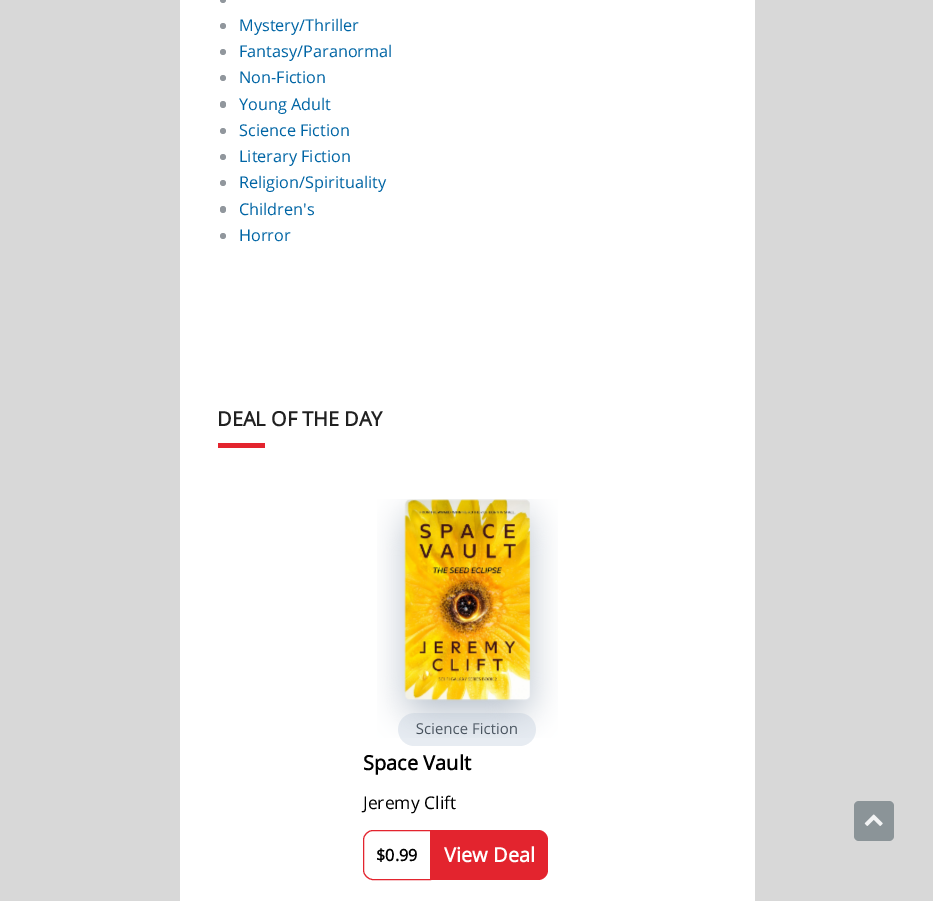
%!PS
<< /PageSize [933 901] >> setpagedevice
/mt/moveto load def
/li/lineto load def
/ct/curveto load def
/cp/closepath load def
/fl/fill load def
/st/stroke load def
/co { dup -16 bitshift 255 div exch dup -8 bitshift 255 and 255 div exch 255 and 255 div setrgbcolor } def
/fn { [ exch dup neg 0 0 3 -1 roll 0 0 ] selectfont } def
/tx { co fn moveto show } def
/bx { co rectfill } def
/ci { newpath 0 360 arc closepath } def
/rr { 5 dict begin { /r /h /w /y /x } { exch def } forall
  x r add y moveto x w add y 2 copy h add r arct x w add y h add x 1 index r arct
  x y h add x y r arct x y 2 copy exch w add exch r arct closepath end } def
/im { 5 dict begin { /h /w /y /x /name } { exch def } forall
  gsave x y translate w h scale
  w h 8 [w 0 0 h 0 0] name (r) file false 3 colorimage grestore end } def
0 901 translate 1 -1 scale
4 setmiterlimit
0 0 933 901 16#D8D8D8 bx
180 0 575 901 16#FFFFFF bx
16#91979D co
223 0 3 ci fl
223 26 3 ci fl
223 52 3 ci fl
223 78 3 ci fl
220 101 6 7 3 rr fl
223 131 3 ci fl
223 157 3 ci fl
223 183 3 ci fl
220 206 6 7 3 rr fl
223 236 3 ci fl
218 443 47 5 16#E3242E bx
16#E7ECF2 co
398 713 138 33 16.5 rr fl
16#E3242E co
373 830.5 mt 430.5 830.5 li 430.5 879.5 li 373 879.5 li 368 879.5 363.5 875 363.5 870 ct 363.5 840 li 363.5 835 368 830.5 373 830.5 ct cp st
431 830 mt 538 830 li 543.5 830 548 834.5 548 840 ct 548 870 li 548 875.5 543.5 880 538 880 ct 431 880 li cp fl
16#8B9498 co
854 801 40 40 5 rr fl
(media/2.raw) 864 814 19 12 im
(Mystery/Thriller) 239 31 /OpenSans-Regular 16.25 16#0065A5 tx
(Fantasy/Paranormal) 239 57 /OpenSans-Regular 16.25 16#0065A5 tx
(Non-Fiction) 239 83 /OpenSans-Regular 16.25 16#0065A5 tx
(Young Adult) 239 110 /OpenSans-Regular 16.25 16#0065A5 tx
(Science Fiction) 239 136 /OpenSans-Regular 16.25 16#0065A5 tx
(Literary Fiction) 239 162 /OpenSans-Regular 16.25 16#0065A5 tx
(Religion/Spirituality) 239 188 /OpenSans-Regular 16.25 16#0065A5 tx
(Children's) 239 215 /OpenSans-Regular 16.25 16#0065A5 tx
(Horror) 239 241 /OpenSans-Regular 16.25 16#0065A5 tx
(DEAL OF THE DAY) 217 426 /OpenSans-Bold 20 16#212121 tx
(Science Fiction) 416 734 /OpenSans-Regular 15 16#36414C tx
(media/1.raw) 377 499 181 239 im
(Space Vault) 363 770 /OpenSans-Bold 20 16#000000 tx
(Jeremy Clift) 363 809 /OpenSans-Regular 17.5 16#000000 tx
($0.99) 376 861 /OpenSans-Bold 16.25 16#000000 tx
(View Deal) 444 862 /OpenSans-Bold 20 16#FFFFFF tx
showpage
